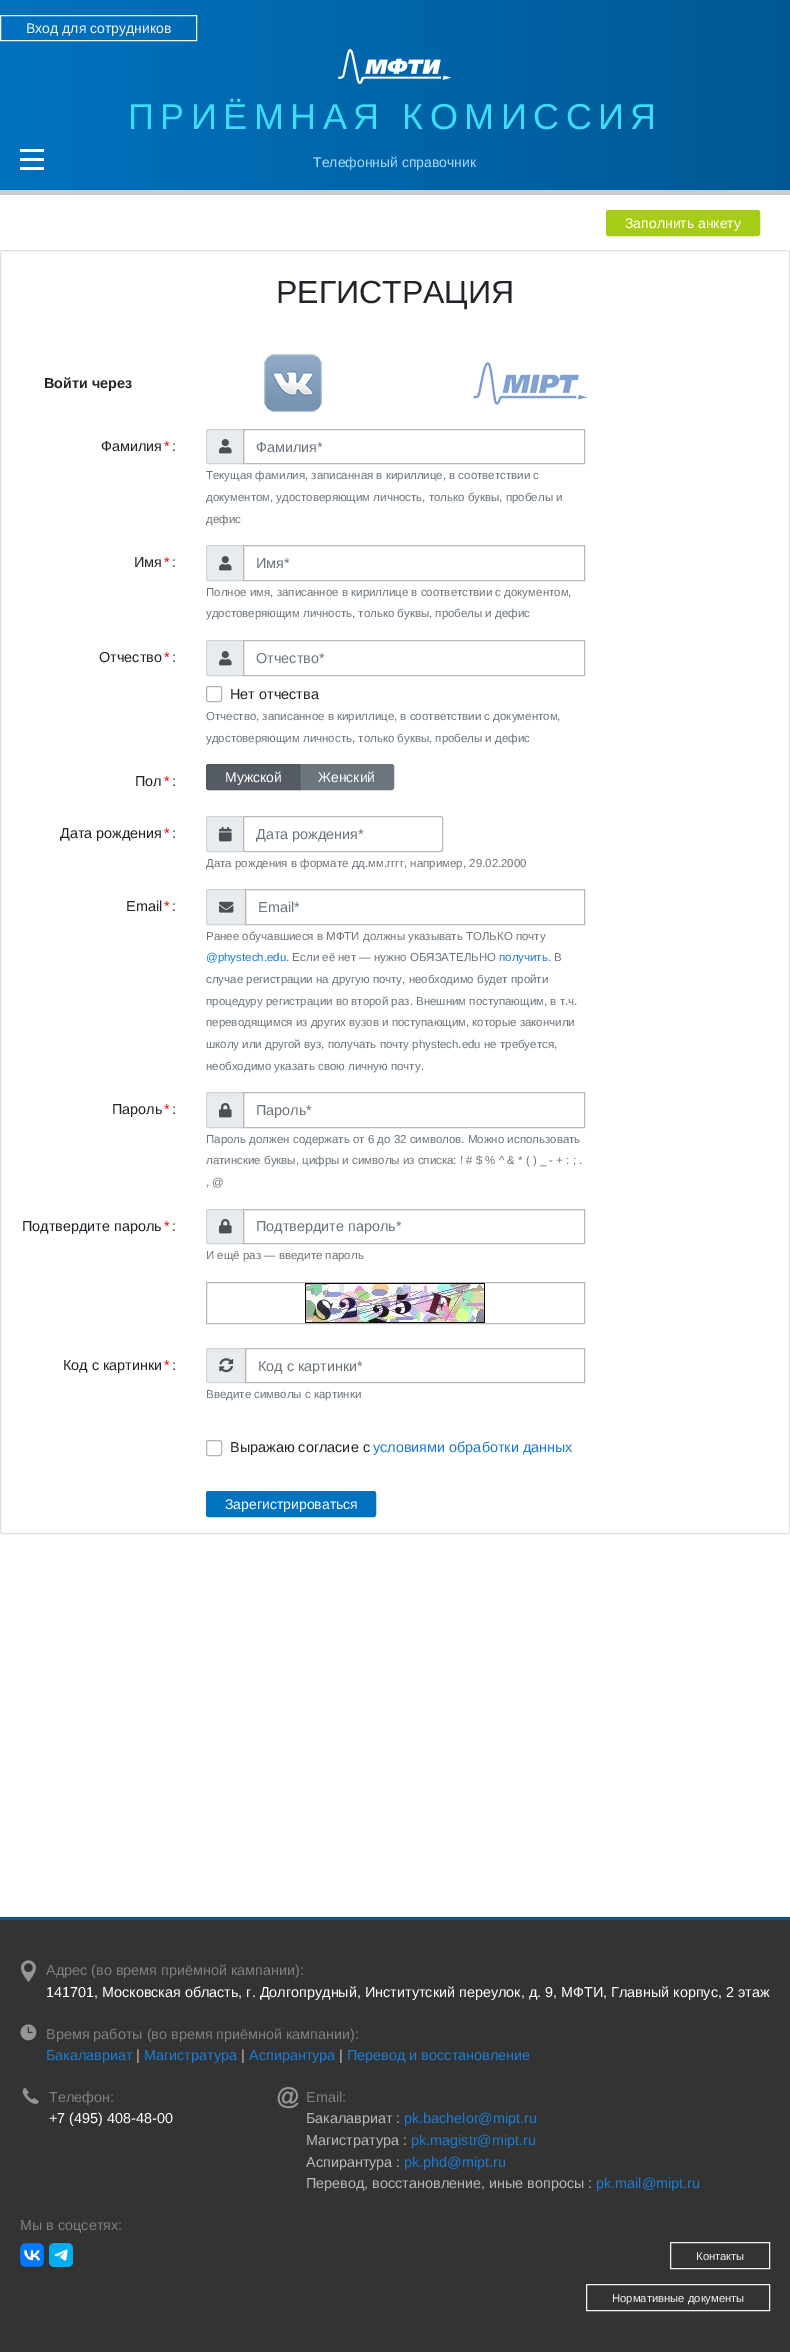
%!PS
<< /PageSize [790 2352] >> setpagedevice
/mt/moveto load def
/li/lineto load def
/ct/curveto load def
/cp/closepath load def
/fl/fill load def
/st/stroke load def
/gs/gsave load def
/gr/grestore load def
/co { dup -16 bitshift 255 div exch dup -8 bitshift 255 and 255 div exch 255 and 255 div setrgbcolor } def
/fn { [ exch dup neg 0 0 3 -1 roll 0 0 ] selectfont } def
/tx { co fn moveto show } def
/bx { co rectfill } def
/rr { 5 dict begin { /r /h /w /y /x } { exch def } forall
  x r add y moveto x w add y 2 copy h add r arct x w add y h add x 1 index r arct
  x y h add x y r arct x y 2 copy exch w add exch r arct closepath end } def
/im { 5 dict begin { /h /w /y /x /name } { exch def } forall
  gsave x y translate w h scale
  w h 8 [w 0 0 h 0 0] name (r) file false 3 colorimage grestore end } def
0 2352 translate 1 -1 scale
4 setmiterlimit
0 0 790 2352 16#333333 bx
0 190 790 5 16#CCCCCC bx
gs 0 0 mt 790 0 li 790 190 li 0 190 li cp clip newpath
<< /ShadingType 2 /ColorSpace /DeviceRGB /Coords [0 95 790 95] /Extend [true true] /Function << /FunctionType 2 /Domain [0 1] /C0 [0 .447 .753] /C1 [0 .345 .576] /N 1 >> >> shfill gr
16#F3F3F3 co
.5 15.5 196 25 rectstroke
(media/1.raw) 338 49 114 35 im
(media/2.raw) 20 149 24 21 im
0 195 790 1722 16#FFFFFF bx
16#A7CC14 co
606.5 210.5 153 25 2 rr gs fl gr
st
16#DFDFDF co
.5 250.5 789 1283 2 rr st
(media/3.raw) 264 354 58 58 im
(media/4.raw) 473 362 115 43 im
16#E9ECEF co
208.5 429.5 mt 243.5 429.5 li 243.5 463.5 li 208.5 463.5 li 207.5 463.5 206.5 462.5 206.5 461.5 ct 206.5 431.5 li 206.5 430.5 207.5 429.5 208.5 429.5 ct cp gs fl gr
16#CED4DA co
st
(media/5.raw) 219 439 13 15 im
16#B8B8B8 co
243.5 429.5 341 34 rectstroke
16#E9ECEF co
208.5 545.5 mt 243.5 545.5 li 243.5 580.5 li 208.5 580.5 li 207.5 580.5 206.5 579.5 206.5 578.5 ct 206.5 547.5 li 206.5 546.5 207.5 545.5 208.5 545.5 ct cp gs fl gr
16#CED4DA co
st
(media/5.raw) 219 556 13 15 im
16#B8B8B8 co
243.5 545.5 341 35 rectstroke
16#E9ECEF co
208.5 640.5 mt 243.5 640.5 li 243.5 675.5 li 208.5 675.5 li 207.5 675.5 206.5 674.5 206.5 673.5 ct 206.5 642.5 li 206.5 641.5 207.5 640.5 208.5 640.5 ct cp gs fl gr
16#CED4DA co
st
(media/5.raw) 219 651 13 15 im
16#B8B8B8 co
243.5 640.5 341 35 rectstroke
16#ADB5BD co
206.5 686.5 15 15 2 rr st
16#6C757D co
299.5 764.5 mt 391.5 764.5 li 392.5 764.5 393.5 765.5 393.5 766.5 ct 393.5 787.5 li 393.5 788.5 392.5 789.5 391.5 789.5 ct 299.5 789.5 li cp gs fl gr
st
16#545B62 co
208.5 764.5 mt 299.5 764.5 li 299.5 789.5 li 208.5 789.5 li 207.5 789.5 206.5 788.5 206.5 787.5 ct 206.5 766.5 li 206.5 765.5 207.5 764.5 208.5 764.5 ct cp gs fl gr
16#4E555B co
st
16#E9ECEF co
208.5 816.5 mt 243.5 816.5 li 243.5 851.5 li 208.5 851.5 li 207.5 851.5 206.5 850.5 206.5 849.5 ct 206.5 818.5 li 206.5 817.5 207.5 816.5 208.5 816.5 ct cp gs fl gr
16#CED4DA co
st
(media/6.raw) 219 827 13 15 im
16#FFFFFF co
243.5 816.5 199 35 2 rr gs fl gr
16#B8B8B8 co
st
16#E9ECEF co
208.5 889.5 mt 245.5 889.5 li 245.5 924.5 li 208.5 924.5 li 207.5 924.5 206.5 923.5 206.5 922.5 ct 206.5 891.5 li 206.5 890.5 207.5 889.5 208.5 889.5 ct cp gs fl gr
16#CED4DA co
st
(media/7.raw) 219 901 15 12 im
16#B8B8B8 co
245.5 889.5 339 35 rectstroke
16#E9ECEF co
208.5 1092.5 mt 243.5 1092.5 li 243.5 1127.5 li 208.5 1127.5 li 207.5 1127.5 206.5 1126.5 206.5 1125.5 ct 206.5 1094.5 li 206.5 1093.5 207.5 1092.5 208.5 1092.5 ct cp gs fl gr
16#CED4DA co
st
(media/8.raw) 219 1103 13 15 im
16#B8B8B8 co
243.5 1092.5 341 35 rectstroke
16#E9ECEF co
208.5 1209.5 mt 243.5 1209.5 li 243.5 1243.5 li 208.5 1243.5 li 207.5 1243.5 206.5 1242.5 206.5 1241.5 ct 206.5 1211.5 li 206.5 1210.5 207.5 1209.5 208.5 1209.5 ct cp gs fl gr
16#CED4DA co
st
(media/8.raw) 219 1219 13 15 im
16#B8B8B8 co
243.5 1209.5 341 34 rectstroke
206.5 1282.5 378 41 rectstroke
(media/9.raw) 305 1283 180 40 im
16#E9ECEF co
208.5 1348.5 mt 245.5 1348.5 li 245.5 1382.5 li 208.5 1382.5 li 207.5 1382.5 206.5 1381.5 206.5 1380.5 ct 206.5 1350.5 li 206.5 1349.5 207.5 1348.5 208.5 1348.5 ct cp gs fl gr
16#CED4DA co
st
(media/10.raw) 219 1358 15 15 im
16#B8B8B8 co
245.5 1348.5 339 34 rectstroke
16#ADB5BD co
206.5 1440.5 15 15 2 rr st
16#0072C0 co
206.5 1491.5 169 25 2 rr gs fl gr
st
0 1917 790 3 16#005893 bx
(media/11.raw) 20 1960 16 22 im
(media/12.raw) 20 2024 17 17 im
(media/13.raw) 22 2087 17 17 im
(media/14.raw) 277 2087 22 22 im
(media/15.raw) 20 2243 24 24 im
(media/16.raw) 49 2243 24 24 im
16#F3F3F3 co
670.5 2242.5 99 26 rectstroke
586.5 2284.5 183 26 rectstroke
(Вход для сотрудников) 26 33 /LiberationSans-Regular 14 16#F3F3F3 tx
(Телефонный справочник) 313 167 /LiberationSans-Regular 14 16#A6DBFF tx
/LiberationSans-Regular 36 fn
16#3CDDFA co
128 129 mt 6.5 0 (ПРИЁМНАЯ КОМИССИЯ) ashow
(Заполнить анкету) 625 228 /LiberationSans-Regular 14 16#FFFFFF tx
(РЕГИСТРАЦИЯ) 276 303 /LiberationSans-Regular 32 16#212529 tx
(Войти через) 44 388 /LiberationSans-Bold 14.4 16#212529 tx
(Фамилия) 101 451 /LiberationSans-Regular 14.4 16#212529 tx
(*) 164 451 /LiberationSans-Regular 14.4 16#FF0000 tx
(:) 172 451 /LiberationSans-Regular 14.4 16#212529 tx
(Фамилия*) 256 452 /LiberationSans-Regular 14.4 16#6C757D tx
(Текущая фамилия, записанная в кириллице, в соответствии с) 206 479 /LiberationSans-Regular 11.5 16#6C757D tx
(документом, удостоверяющим личность, только буквы, пробелы и) 206 501 /LiberationSans-Regular 11.5 16#6C757D tx
(дефис) 206 523 /LiberationSans-Regular 11.5 16#6C757D tx
(Имя) 134 567 /LiberationSans-Regular 14.4 16#212529 tx
(*) 164 567 /LiberationSans-Regular 14.4 16#FF0000 tx
(:) 172 567 /LiberationSans-Regular 14.4 16#212529 tx
(Имя*) 256 568 /LiberationSans-Regular 14.4 16#6C757D tx
(Полное имя, записанное в кириллице в соответствии с документом,) 206 596 /LiberationSans-Regular 11.5 16#6C757D tx
(удостоверяющим личность, только буквы, пробелы и дефис) 206 617 /LiberationSans-Regular 11.5 16#6C757D tx
(Отчество) 99 662 /LiberationSans-Regular 14.4 16#212529 tx
(*) 164 662 /LiberationSans-Regular 14.4 16#FF0000 tx
(:) 172 662 /LiberationSans-Regular 14.4 16#212529 tx
(Отчество*) 256 663 /LiberationSans-Regular 14.4 16#6C757D tx
(Нет отчества) 230 699 /LiberationSans-Regular 14.4 16#212529 tx
(Отчество, записанное в кириллице, в соответствии с документом,) 206 720 /LiberationSans-Regular 11.5 16#6C757D tx
(удостоверяющим личность, только буквы, пробелы и дефис) 206 742 /LiberationSans-Regular 11.5 16#6C757D tx
(Пол) 135 786 /LiberationSans-Regular 14.4 16#212529 tx
(*) 164 786 /LiberationSans-Regular 14.4 16#FF0000 tx
(:) 172 786 /LiberationSans-Regular 14.4 16#212529 tx
(Мужской) 225 782 /LiberationSans-Regular 14 16#FFFFFF tx
(Женский) 318 782 /LiberationSans-Regular 14 16#FFFFFF tx
(Дата рождения) 60 838 /LiberationSans-Regular 14.4 16#212529 tx
(*) 164 838 /LiberationSans-Regular 14.4 16#FF0000 tx
(:) 172 838 /LiberationSans-Regular 14.4 16#212529 tx
(Дата рождения*) 256 839 /LiberationSans-Regular 14.4 16#6C757D tx
(Дата рождения в формате дд.мм.гггг, например, 29.02.2000) 206 867 /LiberationSans-Regular 11.5 16#6C757D tx
(Email) 126 911 /LiberationSans-Regular 14.4 16#212529 tx
(*) 164 911 /LiberationSans-Regular 14.4 16#FF0000 tx
(:) 172 911 /LiberationSans-Regular 14.4 16#212529 tx
(Email*) 258 912 /LiberationSans-Regular 14.4 16#6C757D tx
(Ранее обучавшиеся в МФТИ должны указывать ТОЛЬКО почту) 206 940 /LiberationSans-Regular 11.5 16#6C757D tx
(@phystech.edu) 206 961 /LiberationSans-Regular 11.5 16#1C7CD5 tx
(. Если её нет — нужно ОБЯЗАТЕЛЬНО) 286 961 /LiberationSans-Regular 11.5 16#6C757D tx
(получить) 499 961 /LiberationSans-Regular 11.5 16#1C7CD5 tx
(. В) 548 961 /LiberationSans-Regular 11.5 16#6C757D tx
(случае регистрации на другую почту, необходимо будет пройти) 206 983 /LiberationSans-Regular 11.5 16#6C757D tx
(процедуру регистрации во второй раз. Внешним поступающим, в т.ч.) 206 1005 /LiberationSans-Regular 11.5 16#6C757D tx
(переводящимся из других вузов и поступающим, которые закончили) 206 1026 /LiberationSans-Regular 11.5 16#6C757D tx
(школу или другой вуз, получать почту phystech.edu не требуется,) 206 1048 /LiberationSans-Regular 11.5 16#6C757D tx
(необходимо указать свою личную почту.) 206 1070 /LiberationSans-Regular 11.5 16#6C757D tx
(Пароль) 112 1114 /LiberationSans-Regular 14.4 16#212529 tx
(*) 164 1114 /LiberationSans-Regular 14.4 16#FF0000 tx
(:) 172 1114 /LiberationSans-Regular 14.4 16#212529 tx
(Пароль*) 256 1115 /LiberationSans-Regular 14.4 16#6C757D tx
(Пароль должен содержать от 6 до 32 символов. Можно использовать) 206 1143 /LiberationSans-Regular 11.5 16#6C757D tx
(латинские буквы, цифры и символы из списка: ! # $ % ^ & * \( \) _ - + : ; .) 206 1164 /LiberationSans-Regular 11.5 16#6C757D tx
(, @) 206 1186 /LiberationSans-Regular 11.5 16#6C757D tx
(Подтвердите пароль) 22 1231 /LiberationSans-Regular 14.4 16#212529 tx
(*) 164 1231 /LiberationSans-Regular 14.4 16#FF0000 tx
(:) 172 1231 /LiberationSans-Regular 14.4 16#212529 tx
(Подтвердите пароль*) 256 1231 /LiberationSans-Regular 14.4 16#6C757D tx
(И ещё раз — введите пароль) 206 1259 /LiberationSans-Regular 11.5 16#6C757D tx
(Код с картинки) 63 1370 /LiberationSans-Regular 14.4 16#212529 tx
(*) 164 1370 /LiberationSans-Regular 14.4 16#FF0000 tx
(:) 172 1370 /LiberationSans-Regular 14.4 16#212529 tx
(Код с картинки*) 258 1371 /LiberationSans-Regular 14.4 16#6C757D tx
(Введите символы с картинки) 206 1398 /LiberationSans-Regular 11.5 16#6C757D tx
(Выражаю согласие с) 230 1452 /LiberationSans-Regular 14.4 16#212529 tx
(условиями обработки данных) 373 1452 /LiberationSans-Regular 14.4 16#1C7CD5 tx
(Зарегистрироваться) 225 1509 /LiberationSans-Regular 14 16#FFFFFF tx
(Адрес \(во время приёмной кампании\):) 46 1975 /LiberationSans-Regular 14.4 16#808080 tx
(141701, Московская область, г. Долгопрудный, Институтский переулок, д. 9, МФТИ, Главный корпус, 2 этаж) 46 1997 /LiberationSans-Regular 14.4 16#FFFFFF tx
(Время работы \(во время приёмной кампании\):) 46 2039 /LiberationSans-Regular 14.4 16#808080 tx
(Бакалавриат) 46 2060 /LiberationSans-Regular 14.4 16#1C7CD5 tx
(|) 136 2060 /LiberationSans-Regular 14.4 16#B8B8B8 tx
(Магистратура) 144 2060 /LiberationSans-Regular 14.4 16#1C7CD5 tx
(|) 241 2060 /LiberationSans-Regular 14.4 16#B8B8B8 tx
(Аспирантура) 249 2060 /LiberationSans-Regular 14.4 16#1C7CD5 tx
(|) 339 2060 /LiberationSans-Regular 14.4 16#B8B8B8 tx
(Перевод и восстановление) 347 2060 /LiberationSans-Regular 14.4 16#1C7CD5 tx
(Телефон:) 49 2102 /LiberationSans-Regular 14.4 16#808080 tx
(+7 \(495\) 408-48-00) 49 2123 /LiberationSans-Regular 14.4 16#FFFFFF tx
(Email:) 306 2102 /LiberationSans-Regular 14.4 16#808080 tx
(Бакалавриат :) 306 2123 /LiberationSans-Regular 14.4 16#B8B8B8 tx
(pk.bachelor@mipt.ru) 404 2123 /LiberationSans-Regular 14.4 16#1C7CD5 tx
(Магистратура :) 306 2145 /LiberationSans-Regular 14.4 16#B8B8B8 tx
(pk.magistr@mipt.ru) 411 2145 /LiberationSans-Regular 14.4 16#1C7CD5 tx
(Аспирантура :) 306 2167 /LiberationSans-Regular 14.4 16#B8B8B8 tx
(pk.phd@mipt.ru) 404 2167 /LiberationSans-Regular 14.4 16#1C7CD5 tx
(Перевод, восстановление, иные вопросы :) 306 2188 /LiberationSans-Regular 14.4 16#B8B8B8 tx
(pk.mail@mipt.ru) 596 2188 /LiberationSans-Regular 14.4 16#1C7CD5 tx
(Мы в соцсетях:) 20 2230 /LiberationSans-Regular 14.4 16#808080 tx
(Контакты) 696 2260 /LiberationSans-Regular 11.25 16#F3F3F3 tx
(Нормативные документы) 612 2302 /LiberationSans-Regular 11.25 16#F3F3F3 tx
showpage
